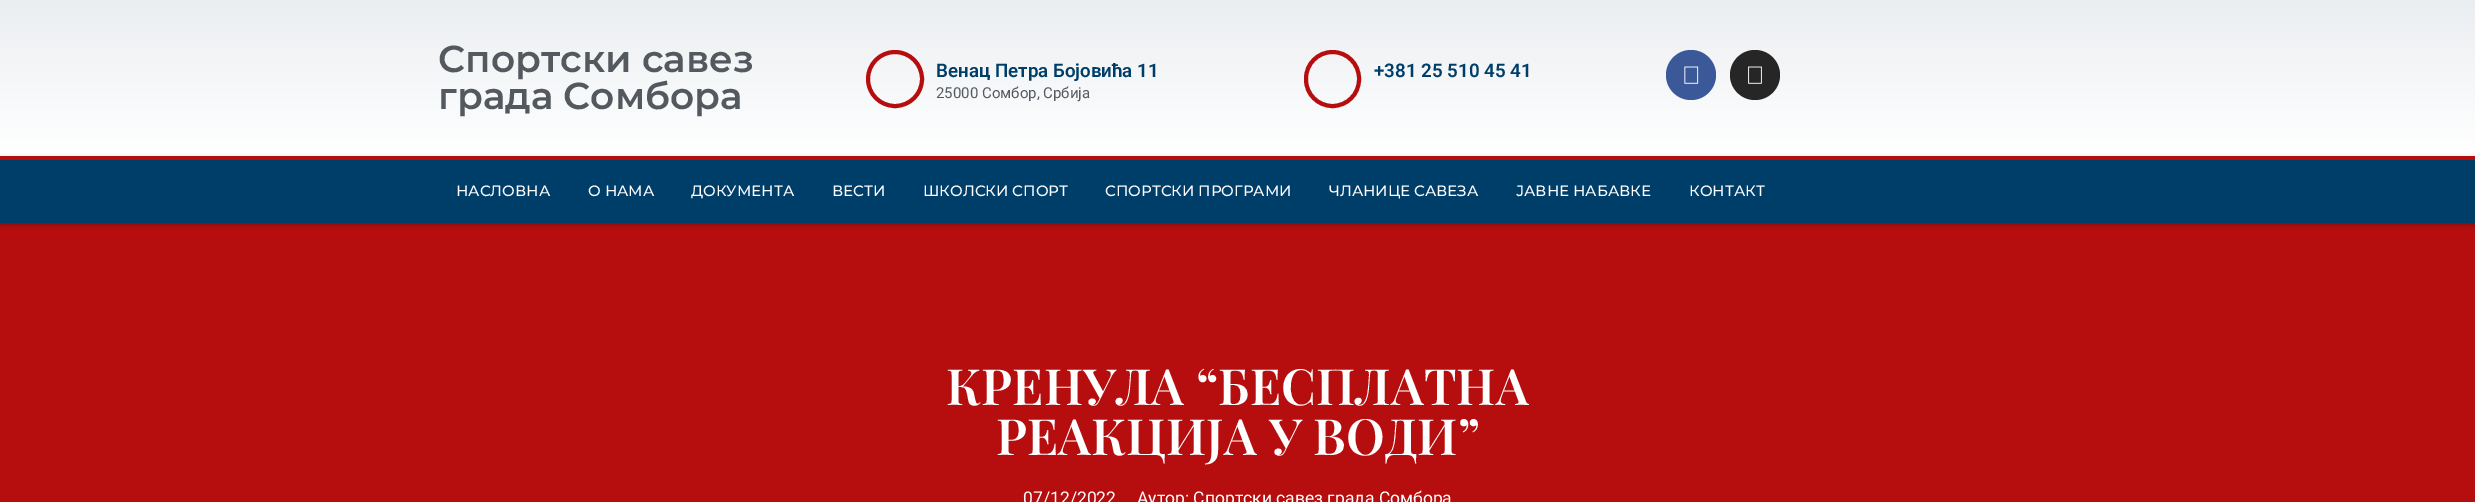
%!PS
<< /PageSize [2475 502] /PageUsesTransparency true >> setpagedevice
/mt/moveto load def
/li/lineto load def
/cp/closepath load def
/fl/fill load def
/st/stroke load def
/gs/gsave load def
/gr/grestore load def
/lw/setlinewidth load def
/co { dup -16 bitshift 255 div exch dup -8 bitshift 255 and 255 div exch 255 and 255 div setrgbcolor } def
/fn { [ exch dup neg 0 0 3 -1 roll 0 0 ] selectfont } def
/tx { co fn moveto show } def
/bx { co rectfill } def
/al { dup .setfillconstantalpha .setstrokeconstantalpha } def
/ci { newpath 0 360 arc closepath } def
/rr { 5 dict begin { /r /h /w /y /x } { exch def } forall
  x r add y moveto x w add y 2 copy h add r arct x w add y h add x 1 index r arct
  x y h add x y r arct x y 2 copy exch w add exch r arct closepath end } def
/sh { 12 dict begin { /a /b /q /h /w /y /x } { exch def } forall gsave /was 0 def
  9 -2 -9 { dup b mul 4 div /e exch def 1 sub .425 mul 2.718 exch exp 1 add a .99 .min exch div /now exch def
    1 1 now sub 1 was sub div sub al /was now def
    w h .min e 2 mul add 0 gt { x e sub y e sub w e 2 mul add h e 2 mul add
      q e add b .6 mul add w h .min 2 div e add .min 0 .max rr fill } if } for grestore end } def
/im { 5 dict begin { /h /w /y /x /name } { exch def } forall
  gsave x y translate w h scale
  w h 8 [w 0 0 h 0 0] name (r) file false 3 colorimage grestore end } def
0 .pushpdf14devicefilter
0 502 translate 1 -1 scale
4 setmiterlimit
0 0 2475 502 16#B60E0E bx
gs 0 0 mt 2475 0 li 2475 156 li 0 156 li cp clip newpath
<< /ShadingType 2 /ColorSpace /DeviceRGB /Coords [1238 0 1238 156] /Extend [true true] /Function << /FunctionType 2 /Domain [0 1] /C0 [.922 .933 .945] /C1 [1 1 1] /N 1 >> >> shfill gr
4 lw
895 79 27 ci st
1306 52 53 54 26.5 rr st
16#3B5998 co
1691 75 25 ci fl
(media/1.raw) 1684 66 15 18 im
16#262626 co
1755 75 25 ci fl
(media/2.raw) 1748 66 14 18 im
16#000000 co
0 159 2475 66 0 3 .29 sh
0 160 2475 63 16#003E6A bx
0 156 2475 4 16#B60E0E bx
(Спортски савез) 438 72 /Montserrat-SemiBold 37.5 16#54595F tx
(града Сомбора) 438 109 /Montserrat-SemiBold 37.5 16#54595F tx
(Венац Петра Бојовића 11) 936 77 /Roboto-SemiBold 18.75 16#003E6A tx
(25000 Сомбор, Србија) 936 98 /Roboto-Regular 15 16#54595F tx
(+381 25 510 45 41) 1374 77 /Roboto-SemiBold 18.75 16#003E6A tx
(НАСЛОВНА) 456 196 /Montserrat-Medium 15 16#FFFFFF tx
(О НАМА) 588 196 /Montserrat-Medium 15 16#FFFFFF tx
(ДОКУМЕНТА) 691 196 /Montserrat-Medium 15 16#FFFFFF tx
(ВЕСТИ) 832 196 /Montserrat-Medium 15 16#FFFFFF tx
(ШКОЛСКИ СПОРТ) 923 196 /Montserrat-Medium 15 16#FFFFFF tx
(СПОРТСКИ ПРОГРАМИ) 1105 196 /Montserrat-Medium 15 16#FFFFFF tx
(ЧЛАНИЦЕ САВЕЗА) 1329 196 /Montserrat-Medium 15 16#FFFFFF tx
(ЈАВНЕ НАБАВКЕ) 1516 196 /Montserrat-Medium 15 16#FFFFFF tx
(КОНТАКТ) 1689 196 /Montserrat-Medium 15 16#FFFFFF tx
(КРЕНУЛА “БЕСПЛАТНА) 946 405 /PlayfairDisplay-SemiBold 50 16#FFFFFF tx
(РЕАКЦИЈА У ВОДИ”) 996 455 /PlayfairDisplay-SemiBold 50 16#FFFFFF tx
(07/12/2022) 1023 504 /Roboto-Regular 17.5 16#FFFFFF tx
(Аутор: Спортски савез града Сомбора) 1137 504 /Roboto-Regular 17.5 16#FFFFFF tx
.poppdf14devicefilter showpage
